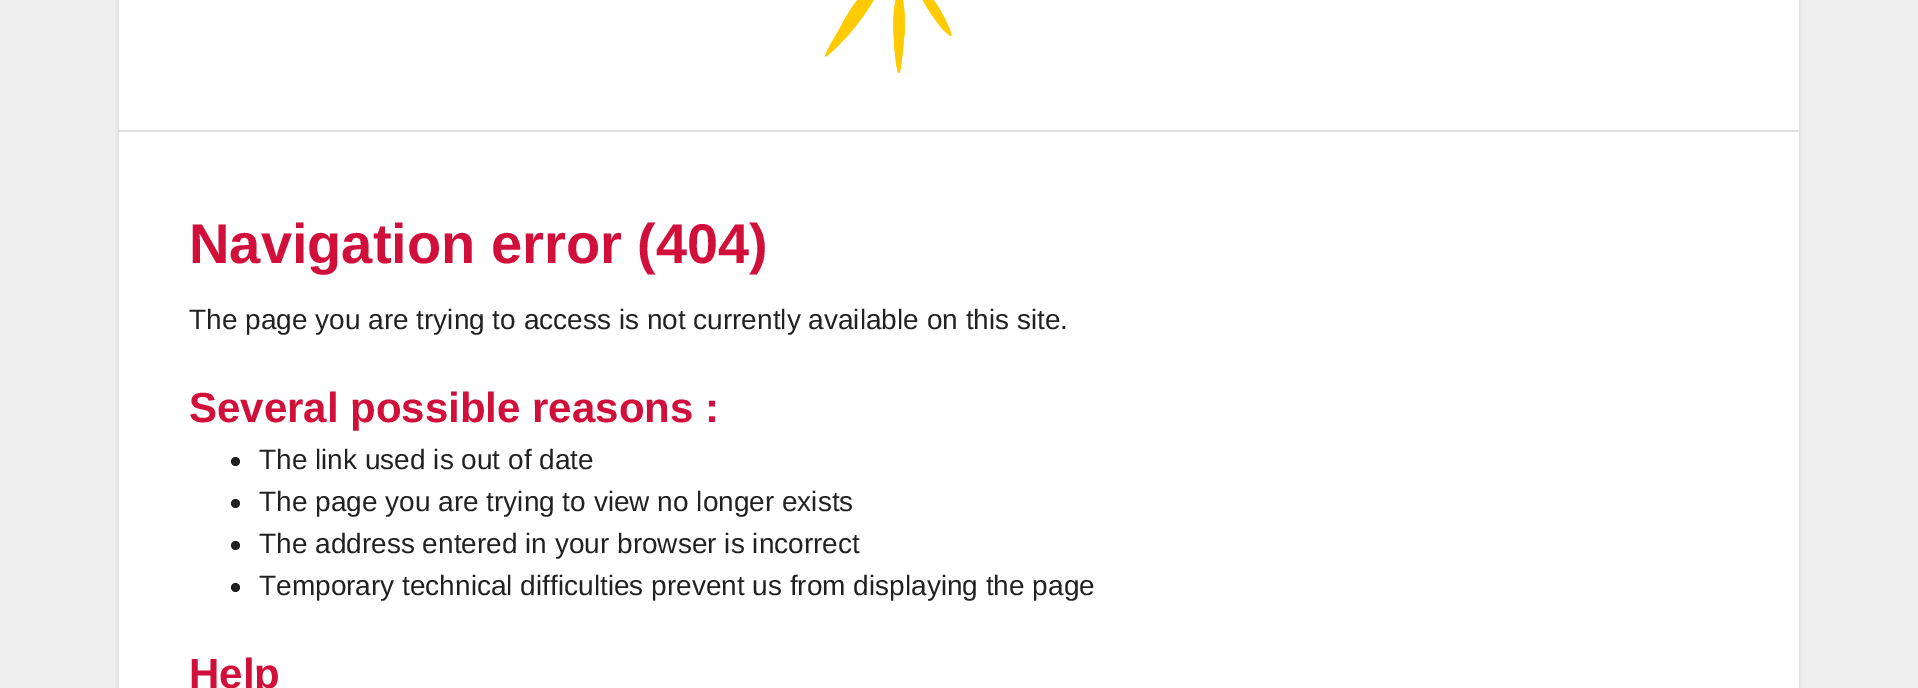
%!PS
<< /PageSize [1918 688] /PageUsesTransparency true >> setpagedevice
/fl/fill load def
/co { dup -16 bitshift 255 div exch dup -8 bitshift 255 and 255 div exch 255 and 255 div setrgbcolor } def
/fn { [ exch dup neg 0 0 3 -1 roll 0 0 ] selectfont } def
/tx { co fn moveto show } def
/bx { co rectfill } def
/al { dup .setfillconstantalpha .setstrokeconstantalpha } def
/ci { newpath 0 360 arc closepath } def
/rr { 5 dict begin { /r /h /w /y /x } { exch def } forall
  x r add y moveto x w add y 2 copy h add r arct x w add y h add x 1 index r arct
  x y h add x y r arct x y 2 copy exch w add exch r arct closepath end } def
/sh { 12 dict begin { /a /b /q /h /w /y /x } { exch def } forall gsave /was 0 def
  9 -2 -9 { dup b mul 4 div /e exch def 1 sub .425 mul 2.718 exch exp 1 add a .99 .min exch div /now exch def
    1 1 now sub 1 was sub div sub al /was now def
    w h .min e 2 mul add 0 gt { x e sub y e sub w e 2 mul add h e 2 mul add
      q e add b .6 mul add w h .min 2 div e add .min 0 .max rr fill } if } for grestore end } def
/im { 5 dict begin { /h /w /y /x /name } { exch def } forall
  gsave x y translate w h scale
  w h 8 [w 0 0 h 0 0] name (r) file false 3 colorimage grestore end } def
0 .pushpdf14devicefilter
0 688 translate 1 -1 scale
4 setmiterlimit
0 0 1918 688 16#EEEEEE bx
16#000000 co
119 -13 1680 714 7 2 .12 sh
119 0 1680 688 16#FFFFFF bx
119 130 1680 2 16#E0E0E0 bx
(media/1.raw) 824 0 128 73 im
16#212121 co
235.5 461.5 4.5 ci fl
235.5 503.5 4.5 ci fl
235.5 545.5 4.5 ci fl
235.5 587.5 4.5 ci fl
(Navigation error \(404\)) 189 263 /LiberationSans-Bold 56 16#D0103A tx
(The page you are trying to access is not currently available on this site.) 189 329 /LiberationSans-Regular 28 16#212121 tx
(Several possible reasons :) 189 422 /LiberationSans-Bold 42 16#D0103A tx
(The link used is out of date) 259 469 /LiberationSans-Regular 28 16#212121 tx
(The page you are trying to view no longer exists) 259 511 /LiberationSans-Regular 28 16#212121 tx
(The address entered in your browser is incorrect) 259 553 /LiberationSans-Regular 28 16#212121 tx
(Temporary technical difficulties prevent us from displaying the page) 259 595 /LiberationSans-Regular 28 16#212121 tx
(Help) 189 688 /LiberationSans-Bold 42 16#D0103A tx
.poppdf14devicefilter showpage
